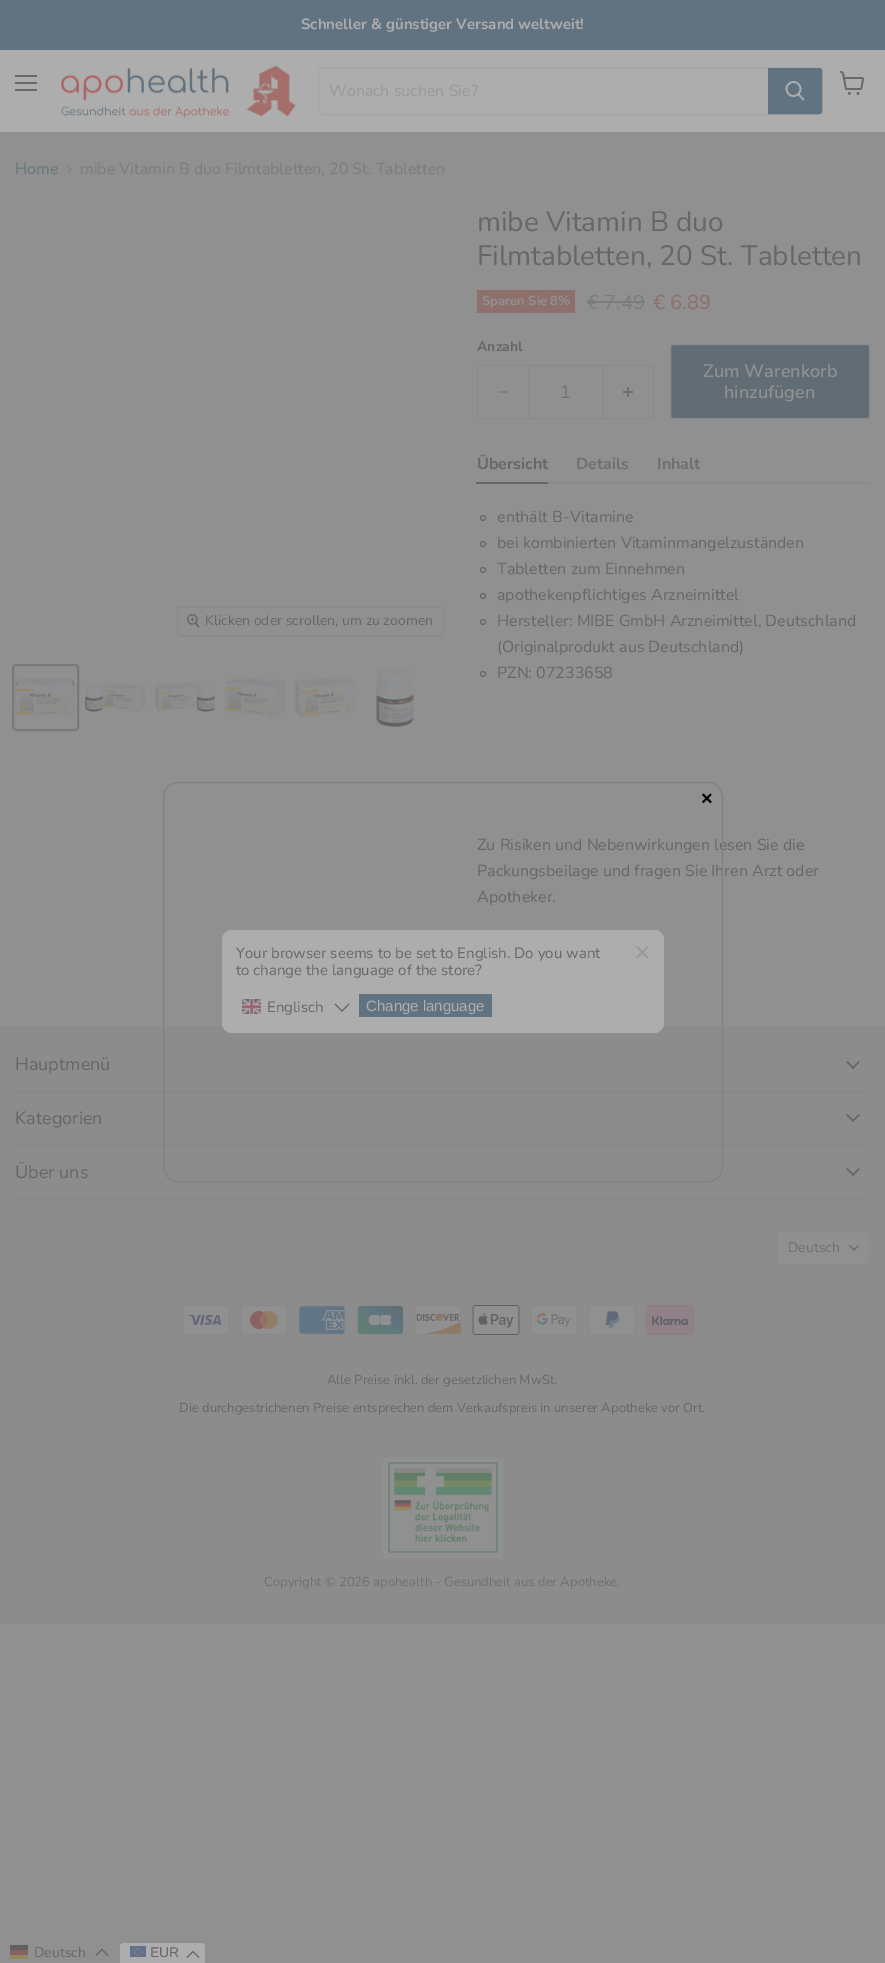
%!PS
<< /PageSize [885 1963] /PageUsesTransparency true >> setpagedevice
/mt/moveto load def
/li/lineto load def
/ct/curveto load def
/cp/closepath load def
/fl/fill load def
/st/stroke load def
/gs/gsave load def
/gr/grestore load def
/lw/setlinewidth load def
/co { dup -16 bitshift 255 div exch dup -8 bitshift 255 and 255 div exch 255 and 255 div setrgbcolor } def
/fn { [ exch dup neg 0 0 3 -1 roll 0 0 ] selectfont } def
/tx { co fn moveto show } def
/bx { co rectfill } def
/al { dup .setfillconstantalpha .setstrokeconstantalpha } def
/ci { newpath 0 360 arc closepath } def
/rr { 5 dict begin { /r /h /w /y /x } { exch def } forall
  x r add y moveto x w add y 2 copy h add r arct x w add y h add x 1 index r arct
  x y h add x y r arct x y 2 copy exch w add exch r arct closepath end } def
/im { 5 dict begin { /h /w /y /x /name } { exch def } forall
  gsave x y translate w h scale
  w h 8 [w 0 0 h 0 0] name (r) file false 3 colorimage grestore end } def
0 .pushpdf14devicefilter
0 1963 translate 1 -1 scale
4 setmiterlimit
0 0 885 1963 16#909090 bx
0 0 885 50 16#617381 bx
0 50 885 82 16#ADADAD bx
15 75 22 2 16#696969 bx
15 82 22 2 16#696969 bx
15 89 22 2 16#696969 bx
(media/1.raw) 60 64 237 56 im
0.2 al
16#878787 co
318.5 67.5 504 47 3.5 rr st
1 al
16#617381 co
768.5 68.5 mt 819 68.5 li 820.5 68.5 821.5 69.5 821.5 71 ct 821.5 111 li 821.5 112.5 820.5 113.5 819 113.5 ct 768.5 113.5 li cp gs fl gr
st
16#ADADAD co
1.7 lw
1 setlinecap
803.5 99.5 mt 798.5 94.5 li st
0 setlinecap
793.5 89 7 ci st
(media/2.raw) 840 71 24 24 im
(media/3.raw) 67 166 5 7 im
16#888888 co
1 lw
177.5 606.5 266 29 3.5 rr st
(media/4.raw) 187 614 13 14 im
16#797979 co
2 lw
13 665 65 65 3 rr st
(media/5.raw) 15 677 60 41 im
(media/6.raw) 85 682 60 30 im
(media/7.raw) 155 682 60 30 im
(media/8.raw) 225 676 60 42 im
(media/9.raw) 295 676 60 42 im
(media/10.raw) 375 667 41 60 im
477 290 98 23 16#8D6F6B bx
587 301 58 2 16#7C7C7C bx
16#8A8A8A co
480 365 mt 528 365 li 528 419 li 480 419 li 478 419 477 418 477 416 ct 477 368 li 477 366 478 365 480 365 ct cp 480 366 mt 528 366 li 528 418 li 480 418 li 479 418 478 417 478 416 ct 478 368 li 478 367 479 366 480 366 ct cp eofill
498 391 10 2 16#808080 bx
16#8A8A8A co
1 lw
528.5 365.5 74 53 rectstroke
603 365 mt 651 365 li 653 365 654 366 654 368 ct 654 416 li 654 418 653 419 651 419 ct 603 419 li cp 603 366 mt 651 366 li 652 366 653 367 653 368 ct 653 416 li 653 417 652 418 651 418 ct 603 418 li cp eofill
(media/11.raw) 623 387 10 10 im
16#616C74 co
670.5 344.5 199 74 2.5 rr gs fl gr
16#8A8A8A co
st
548 482 322 2 16#8A8A8A bx
476 482 72 2 16#666666 bx
483 518 2.5 ci st
483 544 2.5 ci st
483 570 2.5 ci st
483 596 2.5 ci st
483 622 2.5 ci st
483 674 2.5 ci st
0 1026 885 598 16#8C8C8C bx
16#ADADAD co
222 930 442 103 10 rr fl
16#9B9B9B co
647 946 mt 648.5 947.5 li 637.5 958.5 li 636 957 li cp fl
636 947.5 mt 637.5 946 li 648.5 957 li 647 958.5 li cp fl
(media/12.raw) 242 999 19 15 im
16#616161 co
335 1004 mt 342 1011 li 349 1004 li st
359 994 133 23 16#617381 bx
15 1091 855 1 16#868686 bx
(media/13.raw) 846 1061 14 8 im
15 1145 855 1 16#868686 bx
(media/13.raw) 846 1114 14 8 im
15 1198 855 1 16#868686 bx
(media/13.raw) 846 1168 14 8 im
16#909090 co
777.5 1231.5 92 33 2.5 rr gs fl gr
16#8A8A8A co
st
(media/14.raw) 849 1245 10 6 im
(media/15.raw) 182 1305 48 30 im
(media/16.raw) 240 1305 48 30 im
(media/17.raw) 298 1305 48 30 im
(media/18.raw) 356 1305 48 30 im
(media/19.raw) 414 1305 48 30 im
(media/20.raw) 472 1305 48 30 im
(media/21.raw) 530 1305 48 30 im
(media/22.raw) 588 1305 48 30 im
(media/23.raw) 646 1305 48 30 im
(media/24.raw) 383 1457 120 101 im
10 1955 18 4 16#908761 bx
10 1945 18 5 16#616161 bx
10 1950 18 5 16#8A6161 bx
16#616161 co
108 1955.5 mt 102 1949.5 li 96 1955.5 li st
16#ADADAD co
120 1943 85 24 4 rr fl
(media/25.raw) 130 1946 16 11 im
16#616161 co
199 1957.5 mt 193 1951.5 li 187 1957.5 li st
(Schneller & günstiger Versand weltweit!) 301 29 /Nunito-Bold 15 16#ADADAD tx
(Wonach suchen Sie?) 329 96 /Nunito-Regular 16 16#989898 tx
(Home) 15 174 /Nunito-Regular 16 16#617579 tx
(mibe Vitamin B duo Filmtabletten, 20 St. Tabletten) 80 174 /Nunito-Regular 16 16#7C7C7C tx
(Klicken oder scrollen, um zu zoomen) 205 625 /Nunito-Regular 14 16#666666 tx
(mibe Vitamin B duo) 477 231 /Nunito-Regular 28 16#666666 tx
(Filmtabletten, 20 St. Tabletten) 477 265 /Nunito-Regular 28 16#666666 tx
(Sparen Sie 8%) 482 305 /Nunito-Bold 13 16#909090 tx
(€ 7.49) 587 309 /Nunito-Regular 20 16#7C7C7C tx
(€ 6.89) 653 309 /Nunito-Regular 20 16#8D6F6B tx
(Anzahl) 477 351 /Nunito-Bold 14 16#666666 tx
(1) 560 398 /Nunito-Regular 18 16#6F6F6F tx
(Zum Warenkorb) 703 377 /Nunito-SemiBold 18 16#909090 tx
(hinzufügen) 724 398 /Nunito-SemiBold 18 16#909090 tx
(Übersicht) 477 469 /Nunito-Bold 16 16#666666 tx
(Details) 576 469 /Nunito-Bold 16 16#6F6F6F tx
(Inhalt) 657 469 /Nunito-Bold 16 16#6F6F6F tx
(enthält B-Vitamine) 497 522 /Nunito-Regular 16 16#666666 tx
(bei kombinierten Vitaminmangelzuständen) 497 548 /Nunito-Regular 16 16#666666 tx
(Tabletten zum Einnehmen) 497 574 /Nunito-Regular 16 16#666666 tx
(apothekenpflichtiges Arzneimittel) 497 600 /Nunito-Regular 16 16#666666 tx
(Hersteller: MIBE GmbH Arzneimittel, Deutschland) 497 626 /Nunito-Regular 16 16#666666 tx
(\(Originalprodukt aus Deutschland\)) 497 652 /Nunito-Regular 16 16#666666 tx
(PZN: 07233658) 497 678 /Nunito-Regular 16 16#666666 tx
(Zu Risiken und Nebenwirkungen lesen Sie die) 477 850 /Nunito-Regular 16 16#666666 tx
(Packungsbeilage und fragen Sie Ihren Arzt oder) 477 876 /Nunito-Regular 16 16#666666 tx
(Apotheker.) 477 902 /Nunito-Regular 16 16#666666 tx
16#808080 co
163.5 782.5 559 399 14.5 rr st
(×) 701 805 /LiberationSans-Bold 20 16#000000 tx
(Your browser seems to be set to English. Do you want) 236 958 /Nunito-Regular 15 16#666666 tx
(to change the language of the store?) 236 975 /Nunito-Regular 15 16#666666 tx
(Englisch) 267 1012 /Nunito-Regular 15 16#666666 tx
(Change language) 366 1011 /LiberationSans-Regular 15 16#ADADAD tx
(Hauptmenü) 15 1070 /Nunito-Regular 18 16#666666 tx
(Kategorien) 15 1124 /Nunito-Regular 18 16#666666 tx
(Über uns) 15 1178 /Nunito-Regular 18 16#666666 tx
(Deutsch) 788 1252 /Nunito-Regular 14 16#6F6F6F tx
(Alle Preise inkl. der gesetzlichen MwSt.) 327 1384 /Nunito-Regular 13 16#666666 tx
(Die durchgestrichenen Preise entsprechen dem Verkaufspreis in unserer Apotheke vor Ort.) 179 1412 /Nunito-Regular 13 16#666666 tx
(Copyright © 2026 apohealth - Gesundheit aus der Apotheke.) 264 1586 /Nunito-Regular 13 16#6F6F6F tx
(Deutsch) 34 1957 /Nunito-Regular 14 16#666666 tx
(EUR) 150 1957 /LiberationSans-Regular 14 16#666666 tx
.poppdf14devicefilter showpage
